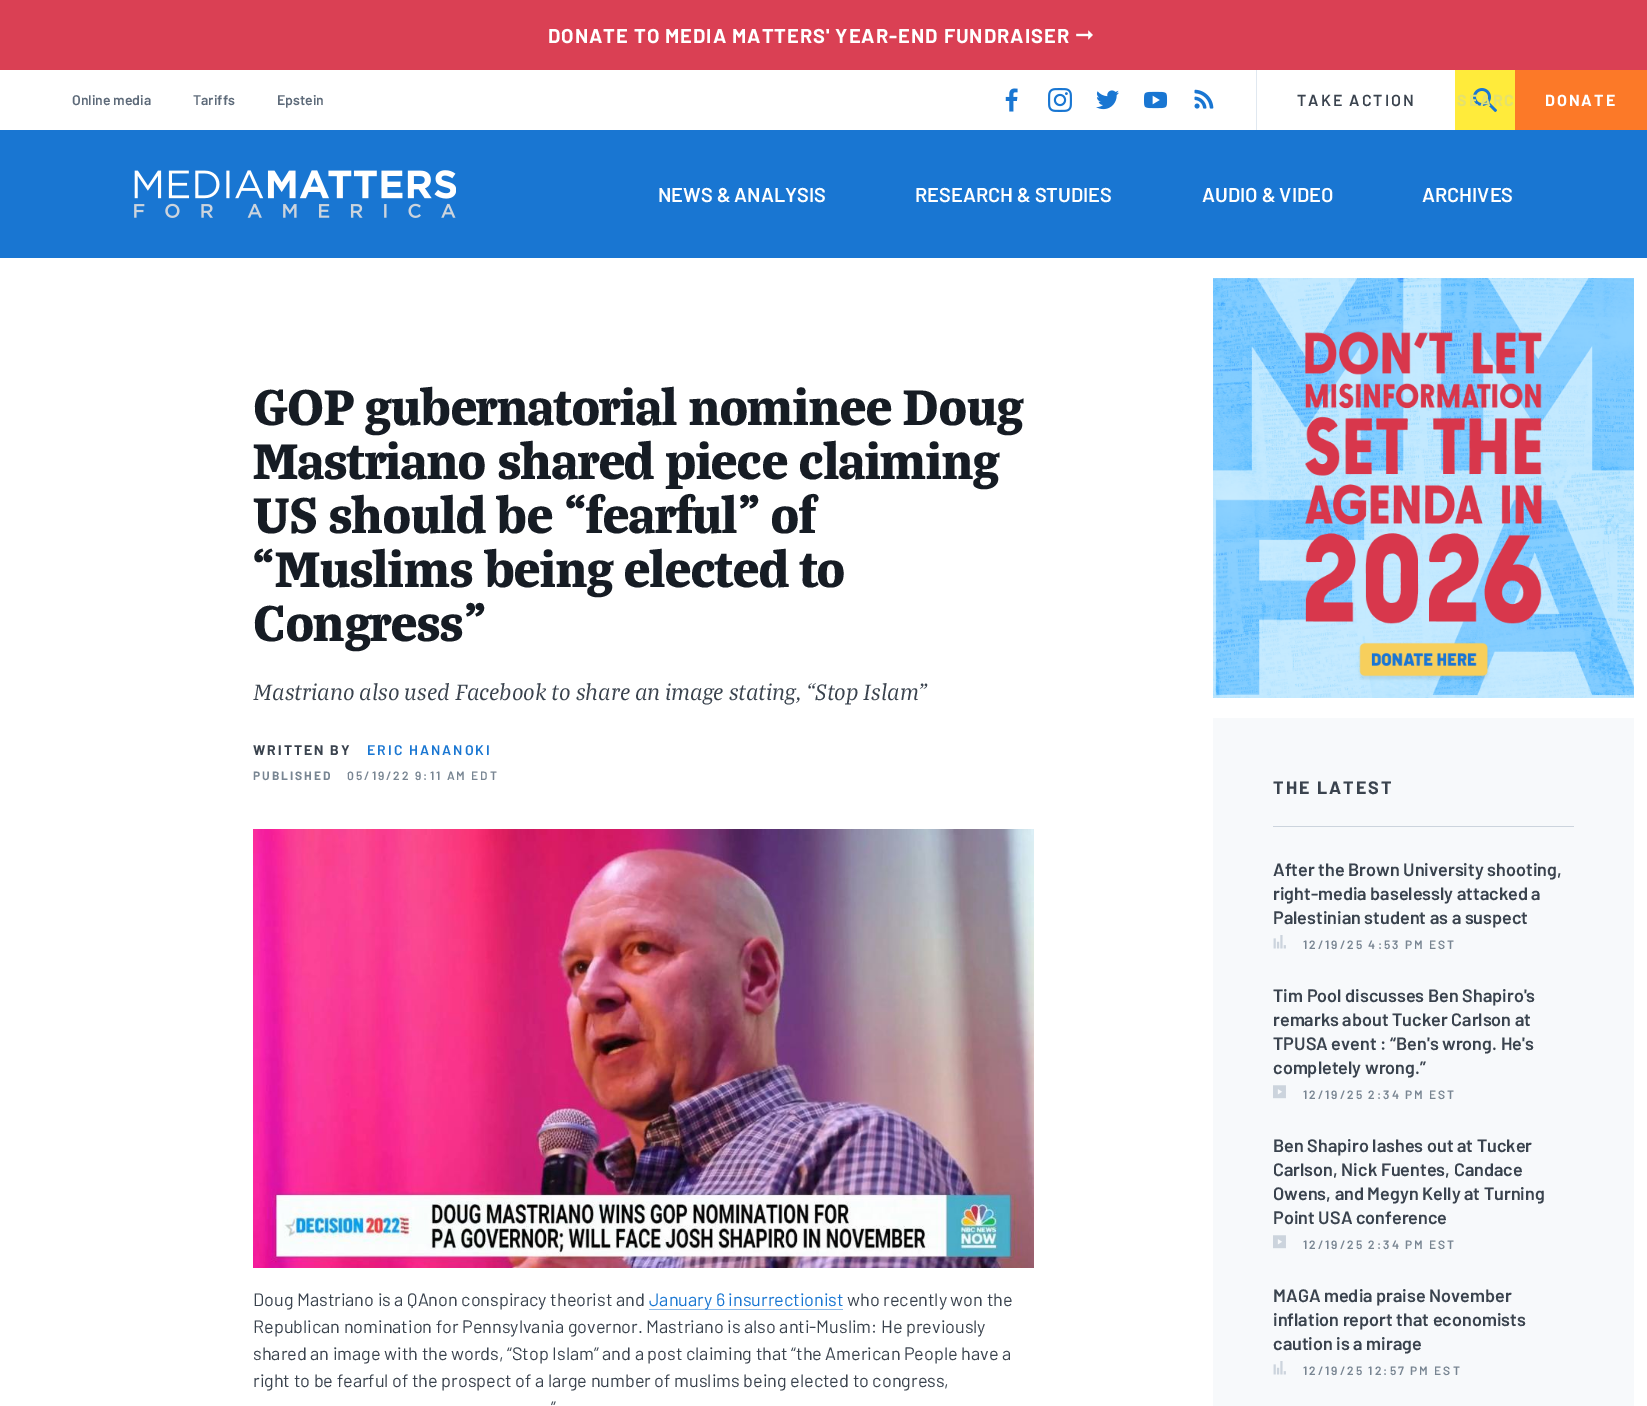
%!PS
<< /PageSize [1647 1406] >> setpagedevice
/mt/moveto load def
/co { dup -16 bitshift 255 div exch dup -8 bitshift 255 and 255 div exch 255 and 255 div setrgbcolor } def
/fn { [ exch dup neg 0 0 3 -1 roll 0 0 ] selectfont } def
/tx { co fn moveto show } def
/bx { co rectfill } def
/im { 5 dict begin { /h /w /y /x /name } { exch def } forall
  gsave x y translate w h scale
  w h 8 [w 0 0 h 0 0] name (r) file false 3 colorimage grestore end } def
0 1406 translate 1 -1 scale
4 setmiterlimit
0 0 1647 1406 16#FFFFFF bx
0 0 1647 70 16#DA4054 bx
(media/1.raw) 1076 30 17 10 im
(media/2.raw) 1005 88 13 24 im
(media/3.raw) 1048 88 24 24 im
(media/4.raw) 1096 90 23 20 im
(media/5.raw) 1144 91 24 18 im
(media/6.raw) 1194 89 20 20 im
1256 70 1 60 16#E0E8F0 bx
1455 70 60 60 16#FFEB3B bx
(media/7.raw) 1473 88 24 24 im
1515 70 132 60 16#FC7928 bx
0 130 1647 128 16#1976D2 bx
(media/8.raw) 134 170 322 48 im
(media/9.raw) 253 829 781 439 im
649 1309 194 1 16#8CBBE9 bx
(media/10.raw) 1213 278 421 420 im
1213 718 421 688 16#F7F9FB bx
1273 826 301 1 16#CCD4DD bx
(media/11.raw) 1273 935 13 14 im
(media/12.raw) 1273 1085 13 14 im
(media/12.raw) 1273 1235 13 14 im
(media/11.raw) 1273 1361 13 14 im
/Barlow-Bold 20 fn
16#FFFFFF co
548 43 mt 1 0 (DONATE TO MEDIA MATTERS' YEAR-END FUNDRAISER) ashow
(Online media) 72 105 /Barlow-SemiBold 14 16#5D6A79 tx
(Tariffs) 193 105 /Barlow-SemiBold 14 16#5D6A79 tx
(Epstein) 277 105 /Barlow-SemiBold 14 16#5D6A79 tx
/Barlow-SemiBold 16 fn
16#3A434E co
1297 106 mt 2 0 (TAKE ACTION) ashow
/Barlow-Bold 16 fn
16#E5E16D co
1457 106 mt 2 0 (SEARC) ashow
16#FFFFFF co
1545 106 mt 2 0 (DONATE) ashow
(NEWS & ANALYSIS) 658 202 /Barlow-SemiBold 20 16#FFFFFF tx
(RESEARCH & STUDIES) 915 202 /Barlow-SemiBold 20 16#FFFFFF tx
(AUDIO & VIDEO) 1202 202 /Barlow-SemiBold 20 16#FFFFFF tx
(ARCHIVES) 1422 202 /Barlow-SemiBold 20 16#FFFFFF tx
(GOP gubernatorial nominee Doug) 253 425 /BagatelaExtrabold-ExtraBold 54 16#161C24 tx
(Mastriano shared piece claiming) 253 479 /BagatelaExtrabold-ExtraBold 54 16#161C24 tx
(US should be “fearful” of) 253 533 /BagatelaExtrabold-ExtraBold 54 16#161C24 tx
(“Muslims being elected to) 253 587 /BagatelaExtrabold-ExtraBold 54 16#161C24 tx
(Congress”) 253 641 /BagatelaExtrabold-ExtraBold 54 16#161C24 tx
(Mastriano also used Facebook to share an image stating, “Stop Islam”) 253 700 /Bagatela-Italic 24 16#3A434E tx
/Barlow-Bold 14 fn
253 755 mt 2 0 (WRITTEN BY) ashow
/Barlow-SemiBold 14 fn
16#1976D2 co
367 755 mt 2 0 (ERIC HANANOKI) ashow
/Barlow-Bold 12 fn
16#788592 co
253 780 mt 2 0 (PUBLISHED) ashow
/Barlow-SemiBold 12 fn
347 780 mt 2 0 (05/19/22 9:11 AM EDT) ashow
(Doug Mastriano is a QAnon conspiracy theorist and) 253 1306 /Barlow-Regular 18 16#3A434E tx
(January 6 insurrectionist) 649 1306 /Barlow-Regular 18 16#1976D2 tx
(who recently won the) 847 1306 /Barlow-Regular 18 16#3A434E tx
(Republican nomination for Pennsylvania governor. Mastriano is also anti-Muslim: He previously) 253 1333 /Barlow-Regular 18 16#3A434E tx
(shared an image with the words, “Stop Islam” and a post claiming that “the American People have a) 253 1360 /Barlow-Regular 18 16#3A434E tx
(right to be fearful of the prospect of a large number of muslims being elected to congress,) 253 1387 /Barlow-Regular 18 16#3A434E tx
(”) 551 1414 /Barlow-Regular 18 16#3A434E tx
/Barlow-Bold 18 fn
1273 794 mt 2 0 (THE LATEST) ashow
(After the Brown University shooting,) 1273 876 /Barlow-SemiBold 18 16#3A434E tx
(right-media baselessly attacked a) 1273 900 /Barlow-SemiBold 18 16#3A434E tx
(Palestinian student as a suspect) 1273 924 /Barlow-SemiBold 18 16#3A434E tx
/Barlow-SemiBold 12 fn
16#788592 co
1303 949 mt 2 0 (12/19/25 4:53 PM EST) ashow
(Tim Pool discusses Ben Shapiro's) 1273 1002 /Barlow-SemiBold 18 16#3A434E tx
(remarks about Tucker Carlson at) 1273 1026 /Barlow-SemiBold 18 16#3A434E tx
(TPUSA event : “Ben's wrong. He's) 1273 1050 /Barlow-SemiBold 18 16#3A434E tx
(completely wrong.”) 1273 1074 /Barlow-SemiBold 18 16#3A434E tx
/Barlow-SemiBold 12 fn
16#788592 co
1303 1099 mt 2 0 (12/19/25 2:34 PM EST) ashow
(Ben Shapiro lashes out at Tucker) 1273 1152 /Barlow-SemiBold 18 16#3A434E tx
(Carlson, Nick Fuentes, Candace) 1273 1176 /Barlow-SemiBold 18 16#3A434E tx
(Owens, and Megyn Kelly at Turning) 1273 1200 /Barlow-SemiBold 18 16#3A434E tx
(Point USA conference) 1273 1224 /Barlow-SemiBold 18 16#3A434E tx
/Barlow-SemiBold 12 fn
16#788592 co
1303 1249 mt 2 0 (12/19/25 2:34 PM EST) ashow
(MAGA media praise November) 1273 1302 /Barlow-SemiBold 18 16#3A434E tx
(inflation report that economists) 1273 1326 /Barlow-SemiBold 18 16#3A434E tx
(caution is a mirage) 1273 1350 /Barlow-SemiBold 18 16#3A434E tx
/Barlow-SemiBold 12 fn
16#788592 co
1303 1375 mt 2 0 (12/19/25 12:57 PM EST) ashow
showpage
